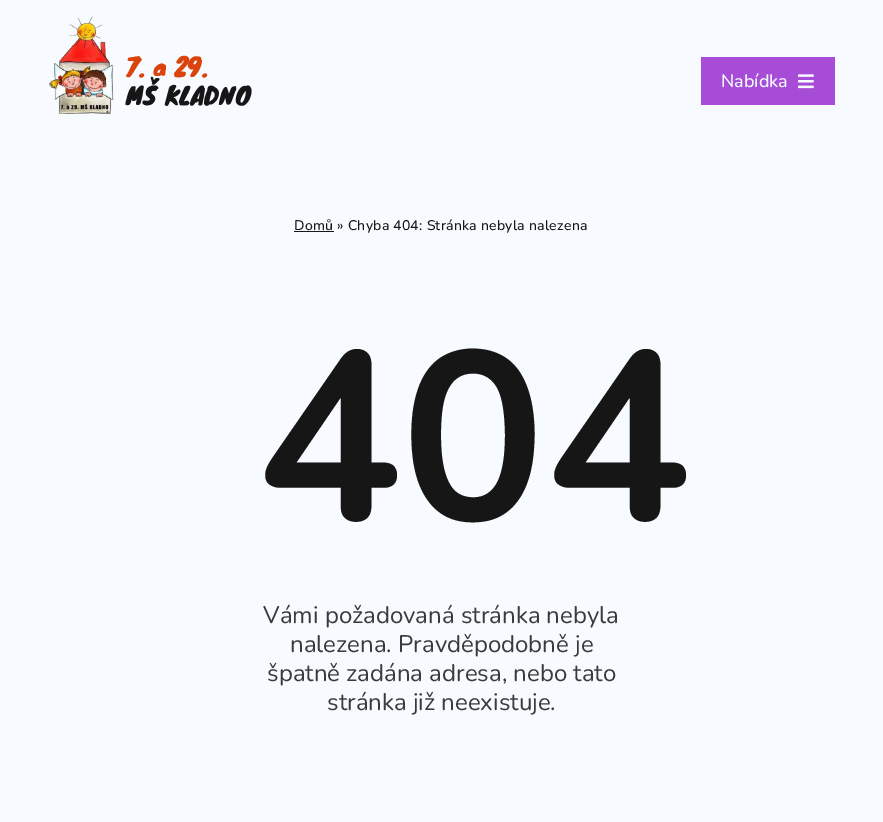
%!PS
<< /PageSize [883 822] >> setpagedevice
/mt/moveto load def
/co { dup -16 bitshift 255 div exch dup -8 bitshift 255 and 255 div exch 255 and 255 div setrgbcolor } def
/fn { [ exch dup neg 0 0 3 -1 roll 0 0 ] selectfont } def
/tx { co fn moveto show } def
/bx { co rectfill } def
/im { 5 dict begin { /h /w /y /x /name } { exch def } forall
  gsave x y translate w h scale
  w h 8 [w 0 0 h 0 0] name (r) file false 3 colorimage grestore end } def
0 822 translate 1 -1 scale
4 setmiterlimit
0 0 883 822 16#F7FAFF bx
(media/1.raw) 48 16 66 98 im
701 57 134 48 16#A64CD6 bx
(media/2.raw) 798 74 16 15 im
294 231 40 1 16#161616 bx
/Knewave-Regular 24 fn
16#DA430B co
126 75 mt .25 0 (7. a 29.) ashow
16#161616 co
126 104 mt .25 0 (MŠ KLADNO) ashow
(Nabídka) 721 87 /Nunito-Medium 18 16#F7FAFF tx
/Nunito-Medium 14 fn
16#161616 co
294 230 mt .25 0 (Domů » Chyba 404: Stránka nebyla nalezena) ashow
/Nunito-Bold 240 fn
257 520 mt .25 0 (404) ashow
(Vámi požadovaná stránka nebyla) 263 623 /Nunito-Regular 24 16#3A3A3A tx
(nalezena. Pravděpodobně je) 290 652 /Nunito-Regular 24 16#3A3A3A tx
(špatně zadána adresa, nebo tato) 267 681 /Nunito-Regular 24 16#3A3A3A tx
(stránka již neexistuje.) 327 710 /Nunito-Regular 24 16#3A3A3A tx
showpage
